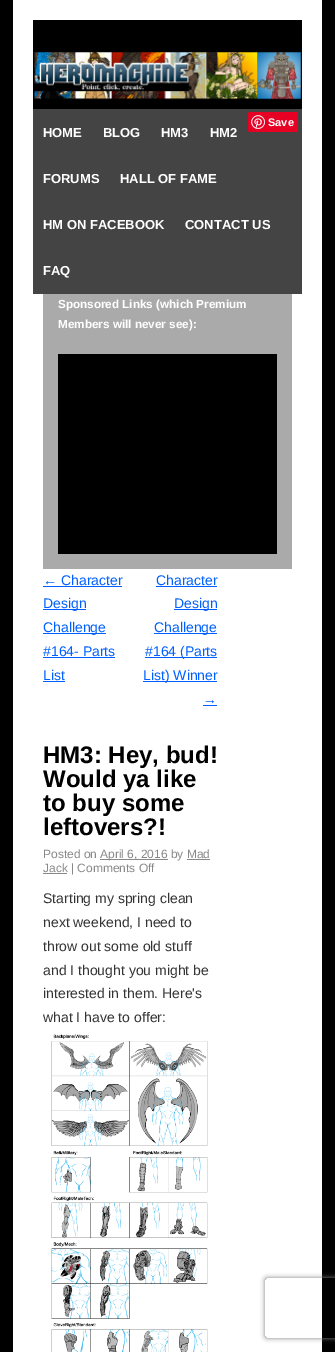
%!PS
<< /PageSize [335 1352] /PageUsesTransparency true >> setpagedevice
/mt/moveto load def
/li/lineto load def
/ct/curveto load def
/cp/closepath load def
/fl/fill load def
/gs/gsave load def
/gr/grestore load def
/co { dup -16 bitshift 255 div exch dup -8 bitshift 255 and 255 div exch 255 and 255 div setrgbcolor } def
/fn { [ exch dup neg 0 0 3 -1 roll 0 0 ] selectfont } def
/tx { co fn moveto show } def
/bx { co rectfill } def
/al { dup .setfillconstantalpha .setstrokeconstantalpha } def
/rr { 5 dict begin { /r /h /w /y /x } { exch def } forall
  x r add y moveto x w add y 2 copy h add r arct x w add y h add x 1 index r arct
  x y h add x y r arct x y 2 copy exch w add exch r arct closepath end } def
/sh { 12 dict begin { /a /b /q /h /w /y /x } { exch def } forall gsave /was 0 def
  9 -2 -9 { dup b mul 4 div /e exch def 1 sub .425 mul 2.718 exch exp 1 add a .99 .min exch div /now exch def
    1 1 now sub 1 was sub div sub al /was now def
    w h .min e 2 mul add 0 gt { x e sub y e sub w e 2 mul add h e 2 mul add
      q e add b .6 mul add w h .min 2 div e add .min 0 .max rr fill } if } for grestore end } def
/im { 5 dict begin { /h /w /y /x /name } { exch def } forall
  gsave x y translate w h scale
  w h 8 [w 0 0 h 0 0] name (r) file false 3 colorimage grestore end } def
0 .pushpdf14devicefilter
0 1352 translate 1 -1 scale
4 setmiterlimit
0 0 335 1352 16#000000 bx
13 0 309 1352 16#FFFFFF bx
33 20 269 89 16#000000 bx
(media/1.raw) 34 51 268 49 im
33 109 269 185 16#444444 bx
16#E60023 co
248 112 50 20 2 rr fl
(media/2.raw) 251 115 14 14 im
43 294 249 275 16#AAAAAA bx
58 354 219 200 16#000000 bx
43 586 79 1 16#0060FF bx
43 609 43 1 16#0060FF bx
43 633 63 1 16#0060FF bx
43 657 72 1 16#0060FF bx
43 681 22 1 16#0060FF bx
156 586 61 1 16#0060FF bx
174 609 43 1 16#0060FF bx
154 633 63 1 16#0060FF bx
145 657 72 1 16#0060FF bx
143 681 74 1 16#0060FF bx
203 705 14 1 16#0060FF bx
100 859 68 1 16#888888 bx
187 859 23 1 16#888888 bx
43 873 24 1 16#888888 bx
(media/3.raw) 51 1034 157 318 im
gs
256 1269 mt 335 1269 li 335 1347 li 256 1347 li cp 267 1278 mt 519 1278 li 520 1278 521 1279 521 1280 ct 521 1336 li 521 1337 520 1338 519 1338 ct 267 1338 li 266 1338 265 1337 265 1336 ct 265 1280 li 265 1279 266 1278 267 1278 ct cp eoclip newpath
16#808080 co
265 1278 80 60 2 2.5 1 sh
gr
(Save) 268 126 /LiberationSans-Bold 11 16#FFFFFF tx
(HOME) 43 137 /LiberationSans-Bold 13 16#FFFFFF tx
(BLOG) 103 137 /LiberationSans-Bold 13 16#FFFFFF tx
(HM3) 161 137 /LiberationSans-Bold 13 16#FFFFFF tx
(HM2) 210 137 /LiberationSans-Bold 13 16#FFFFFF tx
(FORUMS) 43 183 /LiberationSans-Bold 13 16#FFFFFF tx
(HALL OF FAME) 120 183 /LiberationSans-Bold 13 16#FFFFFF tx
(HM ON FACEBOOK) 43 229 /LiberationSans-Bold 13 16#FFFFFF tx
(CONTACT US) 185 229 /LiberationSans-Bold 13 16#FFFFFF tx
(FAQ) 43 275 /LiberationSans-Bold 13 16#FFFFFF tx
(Sponsored Links \(which Premium) 58 308 /LiberationSans-Bold 11.7 16#FFFFFF tx
(Members will never see\):) 58 328 /LiberationSans-Bold 11.7 16#FFFFFF tx
(← Character) 43 585 /LiberationSans-Regular 14 16#0060FF tx
(Design) 43 608 /LiberationSans-Regular 14 16#0060FF tx
(Challenge) 43 632 /LiberationSans-Regular 14 16#0060FF tx
(#164- Parts) 43 656 /LiberationSans-Regular 14 16#0060FF tx
(List) 43 680 /LiberationSans-Regular 14 16#0060FF tx
(Character) 156 585 /LiberationSans-Regular 14 16#0060FF tx
(Design) 174 608 /LiberationSans-Regular 14 16#0060FF tx
(Challenge) 154 632 /LiberationSans-Regular 14 16#0060FF tx
(#164 \(Parts) 145 656 /LiberationSans-Regular 14 16#0060FF tx
(List\) Winner) 143 680 /LiberationSans-Regular 14 16#0060FF tx
(→) 203 704 /LiberationSans-Regular 14 16#0060FF tx
(HM3: Hey, bud!) 43 763 /LiberationSans-Bold 24 16#000000 tx
(Would ya like) 43 787 /LiberationSans-Bold 24 16#000000 tx
(to buy some) 43 811 /LiberationSans-Bold 24 16#000000 tx
(leftovers?!) 43 835 /LiberationSans-Bold 24 16#000000 tx
(Posted on) 43 858 /LiberationSans-Regular 12 16#888888 tx
(April 6, 2016 by Mad) 100 858 /LiberationSans-Regular 12 16#888888 tx
(Jack | Comments Off) 43 872 /LiberationSans-Regular 12 16#888888 tx
(Starting my spring clean) 43 903 /LiberationSans-Regular 14 16#333333 tx
(next weekend, I need to) 43 927 /LiberationSans-Regular 14 16#333333 tx
(throw out some old stuff) 43 951 /LiberationSans-Regular 14 16#333333 tx
(and I thought you might be) 43 975 /LiberationSans-Regular 14 16#333333 tx
(interested in them. Here's) 43 998 /LiberationSans-Regular 14 16#333333 tx
(what I have to offer:) 43 1022 /LiberationSans-Regular 14 16#333333 tx
.poppdf14devicefilter showpage
